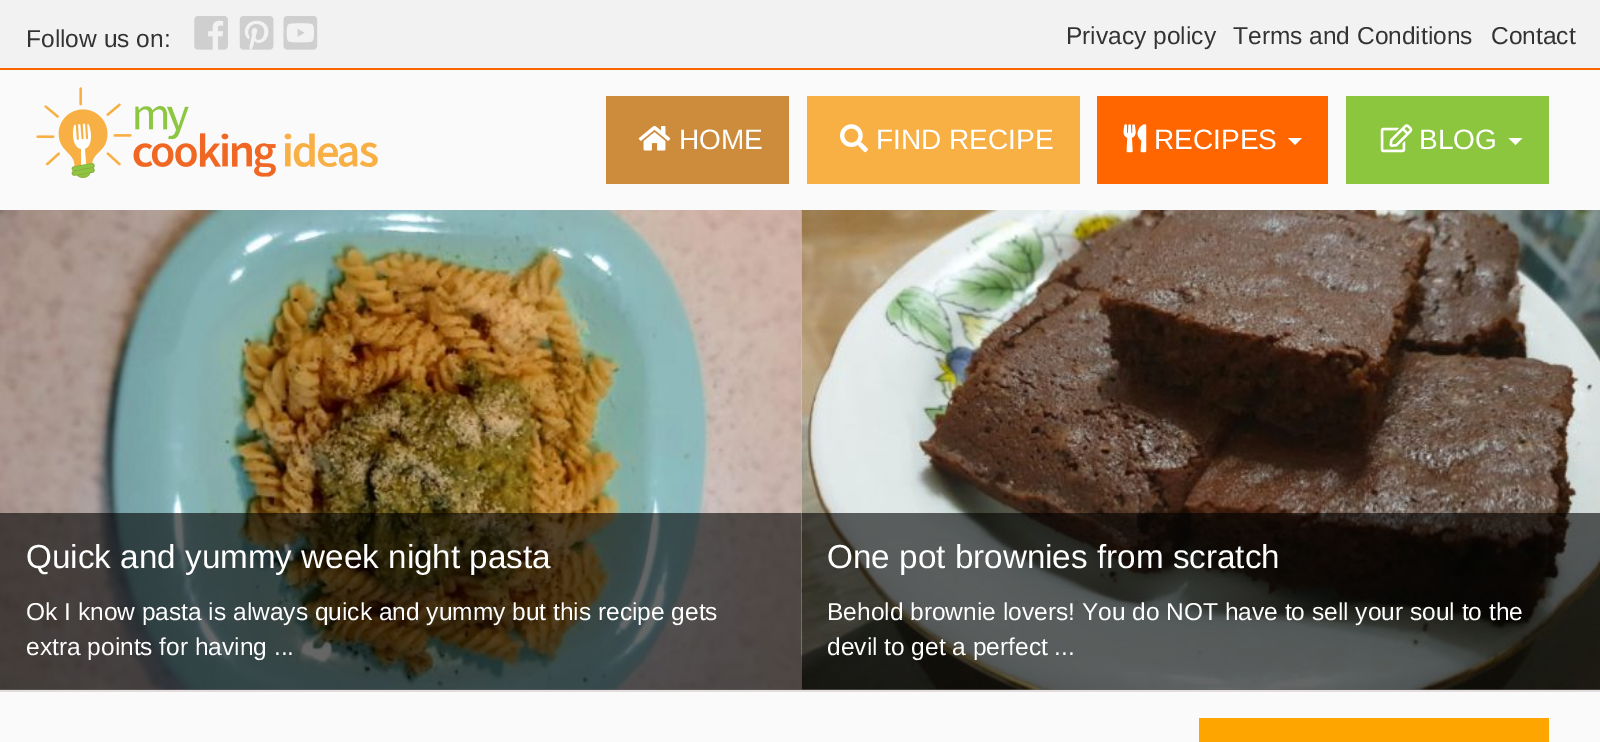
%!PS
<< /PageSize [1600 742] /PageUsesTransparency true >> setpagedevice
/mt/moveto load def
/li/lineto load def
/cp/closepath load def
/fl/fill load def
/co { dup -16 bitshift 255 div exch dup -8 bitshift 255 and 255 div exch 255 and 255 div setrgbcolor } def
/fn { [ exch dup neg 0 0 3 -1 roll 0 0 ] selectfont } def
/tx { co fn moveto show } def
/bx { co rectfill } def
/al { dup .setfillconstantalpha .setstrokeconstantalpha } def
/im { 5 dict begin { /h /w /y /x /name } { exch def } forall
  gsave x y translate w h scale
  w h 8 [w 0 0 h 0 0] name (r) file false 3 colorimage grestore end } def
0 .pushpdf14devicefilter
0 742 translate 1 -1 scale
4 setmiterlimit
0 0 1600 742 16#FFFFFF bx
0 0 1600 68 16#F2F2F2 bx
0 68 1600 2 16#FF6600 bx
(media/1.raw) 194 16 34 34 im
(media/2.raw) 239 16 35 34 im
(media/3.raw) 283 16 35 34 im
0 70 1600 140 16#FAFAFA bx
(media/4.raw) 36 87 342 91 im
606 96 183 88 16#CD8C3B bx
(media/5.raw) 638 126 33 25 im
807 96 273 88 16#F8AF44 bx
(media/6.raw) 840 124 28 29 im
1097 96 231 88 16#FF6600 bx
(media/7.raw) 1123 124 24 29 im
16#FFFFFF co
1288 138 mt 1302 138 li 1295 145 li cp fl
1346 96 203 88 16#8BC63E bx
(media/8.raw) 1380 124 33 29 im
16#FFFFFF co
1508.5 138 mt 1522.5 138 li 1515.5 145 li cp fl
(media/9.raw) 0 210 802 480 im
0.6 al
0 513 802 177 16#000000 bx
1 al
(media/10.raw) 801 210 799 480 im
0.6 al
802 513 798 177 16#000000 bx
1 al
0 692 1600 50 16#FAFAFA bx
0 690 1600 2 16#E2DCDC bx
1199 718 350 24 16#FFA500 bx
(Follow us on:) 26 47 /LiberationSans-Regular 24.5 16#333333 tx
(Privacy policy) 1066 44 /LiberationSans-Regular 24.5 16#333333 tx
(Terms and Conditions) 1233 44 /LiberationSans-Regular 24.5 16#333333 tx
(Contact) 1491 44 /LiberationSans-Regular 24.5 16#333333 tx
(HOME) 679 149 /LiberationSans-Regular 28 16#FFFFFF tx
(FIND RECIPE) 876 149 /LiberationSans-Regular 28 16#FFFFFF tx
(RECIPES) 1154 149 /LiberationSans-Regular 28 16#FFFFFF tx
(BLOG) 1419 149 /LiberationSans-Regular 28 16#FFFFFF tx
(Quick and yummy week night pasta) 26 568 /LiberationSans-Regular 33.25 16#FFFFFF tx
(Ok I know pasta is always quick and yummy but this recipe gets) 26 620 /LiberationSans-Regular 24.5 16#FFFFFF tx
(extra points for having ...) 26 655 /LiberationSans-Regular 24.5 16#FFFFFF tx
(One pot brownies from scratch) 827 568 /LiberationSans-Regular 33.25 16#FFFFFF tx
(Behold brownie lovers! You do NOT have to sell your soul to the) 827 620 /LiberationSans-Regular 24.5 16#FFFFFF tx
(devil to get a perfect ...) 827 655 /LiberationSans-Regular 24.5 16#FFFFFF tx
.poppdf14devicefilter showpage
